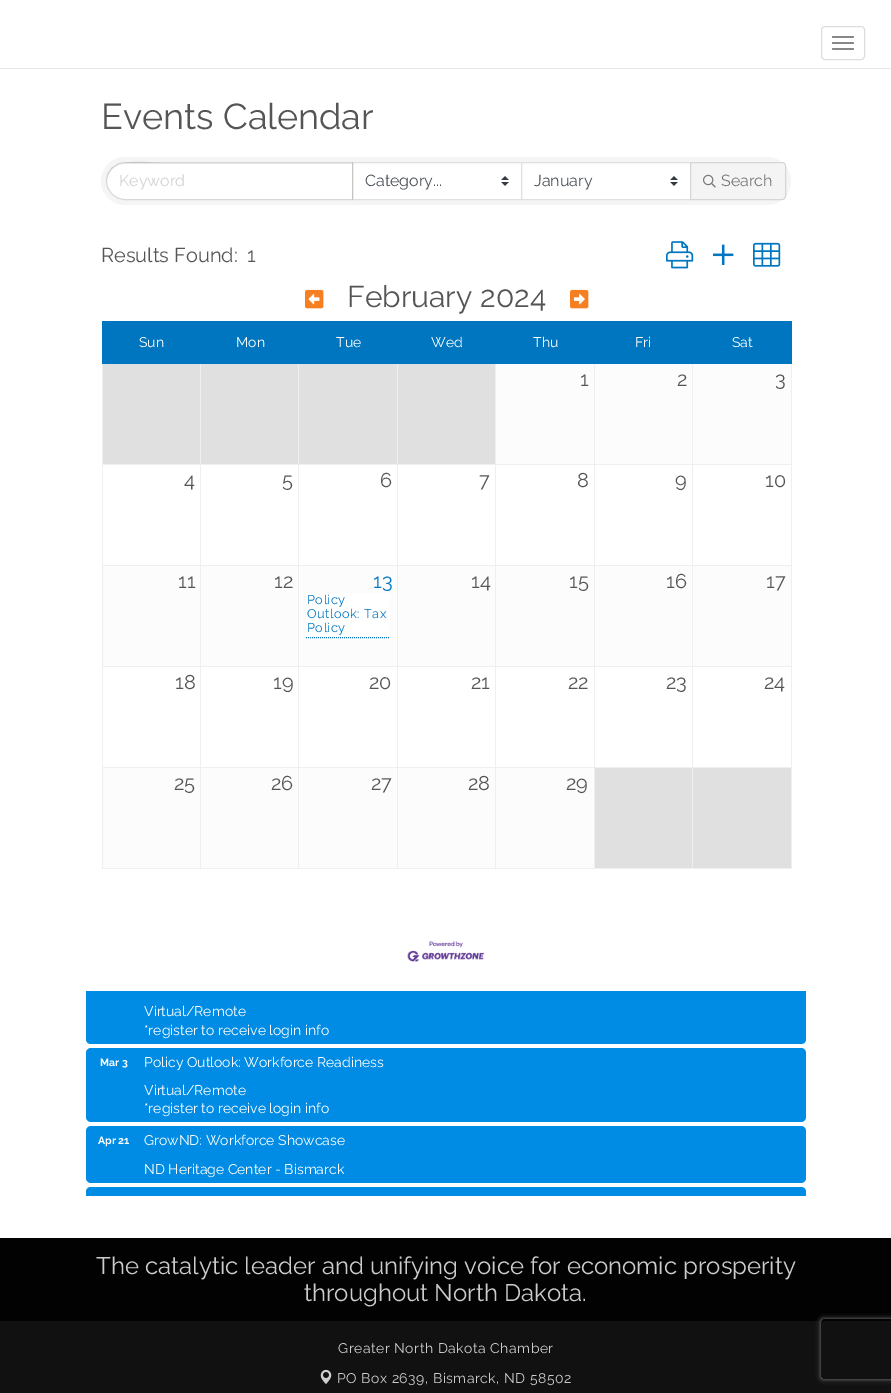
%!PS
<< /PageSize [891 1393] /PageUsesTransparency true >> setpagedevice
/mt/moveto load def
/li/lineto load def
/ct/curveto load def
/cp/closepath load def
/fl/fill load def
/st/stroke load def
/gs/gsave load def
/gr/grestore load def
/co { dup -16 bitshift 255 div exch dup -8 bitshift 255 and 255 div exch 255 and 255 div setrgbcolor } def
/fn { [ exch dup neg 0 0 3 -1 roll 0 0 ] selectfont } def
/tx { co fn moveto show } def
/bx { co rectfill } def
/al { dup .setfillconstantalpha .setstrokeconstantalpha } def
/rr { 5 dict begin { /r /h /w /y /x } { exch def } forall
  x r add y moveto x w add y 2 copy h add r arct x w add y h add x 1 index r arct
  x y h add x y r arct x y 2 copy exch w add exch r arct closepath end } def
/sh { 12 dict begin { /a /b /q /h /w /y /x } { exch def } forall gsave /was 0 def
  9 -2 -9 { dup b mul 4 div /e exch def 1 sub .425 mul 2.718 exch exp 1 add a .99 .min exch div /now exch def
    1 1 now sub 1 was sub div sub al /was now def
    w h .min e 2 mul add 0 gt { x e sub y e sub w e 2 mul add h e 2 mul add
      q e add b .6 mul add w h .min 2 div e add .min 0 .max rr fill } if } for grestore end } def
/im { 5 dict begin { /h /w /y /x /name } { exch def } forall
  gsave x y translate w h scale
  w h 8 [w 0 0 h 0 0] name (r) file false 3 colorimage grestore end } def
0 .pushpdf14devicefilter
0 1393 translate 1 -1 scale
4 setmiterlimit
0 0 891 1393 16#FFFFFF bx
0 68 891 1 16#E6E6E6 bx
16#DDDDDD co
821.5 26.5 43 33 3.5 rr st
16#888888 co
832 36 22 2 1 rr fl
832 42 22 2 1 rr fl
832 48 22 2 1 rr fl
16#F5F5F5 co
101 157 690 48 24 rr fl
16#FFFFFF co
125 163 mt 352 163 li 352 199 li 125 199 li 115 199 107 191 107 181 ct 107 171 115 163 125 163 ct cp fl
0.07 al
16#000000 co
125 164 mt 352 164 li 352 163 li 163 163 li 151 163 106 154 107 181 ct 107 172 115 164 125 164 ct cp fl
1 al
353 163 168 36 16#FFFFFF bx
(media/1.raw) 501 176 8 10 im
16#DFDFDF co
352.5 162.5 169 37 rectstroke
0.12 al
16#000000 co
125 162.5 mt 352.5 162.5 li 352.5 199.5 li 125 199.5 li 115 199.5 106.5 191 106.5 181 ct 106.5 171 115 162.5 125 162.5 ct cp st
1 al
522 163 168 36 16#FFFFFF bx
(media/1.raw) 670 176 8 10 im
16#DFDFDF co
521.5 162.5 169 37 rectstroke
16#F4F4F4 co
690 162 mt 782 162 li 784 162 786 164 786 166 ct 786 196 li 786 198 784 200 782 200 ct 690 200 li cp fl
0.12 al
16#000000 co
690.5 162.5 mt 782 162.5 li 784 162.5 785.5 164 785.5 166 ct 785.5 196 li 785.5 198 784 199.5 782 199.5 ct 690.5 199.5 li cp st
1 al
(media/2.raw) 703 174 13 14 im
(media/3.raw) 666 241 28 28 im
(media/4.raw) 713 244 21 21 im
(media/5.raw) 753 242 28 25 im
(media/6.raw) 305 289 19 20 im
(media/7.raw) 570 289 19 20 im
102 322 689 41 16#0076C0 bx
102 321 690 1 16#0076C0 bx
692 464 100 1 16#EFEFEF bx
692 565 100 1 16#EFEFEF bx
692 666 100 1 16#EFEFEF bx
692 767 100 1 16#EFEFEF bx
791 767 1 102 16#EFEFEF bx
791 666 1 102 16#EFEFEF bx
791 565 1 102 16#EFEFEF bx
791 363 1 203 16#EFEFEF bx
791 321 1 43 16#0076C0 bx
103 566 688 100 16#FCFCFC bx
692 868 100 1 16#EFEFEF bx
692 767 1 102 16#EFEFEF bx
594 767 99 1 16#EFEFEF bx
692 666 1 102 16#EFEFEF bx
594 666 99 1 16#EFEFEF bx
692 565 1 102 16#EFEFEF bx
594 565 99 1 16#EFEFEF bx
692 464 1 102 16#EFEFEF bx
594 464 99 1 16#EFEFEF bx
594 868 99 1 16#EFEFEF bx
594 767 1 102 16#EFEFEF bx
495 767 100 1 16#EFEFEF bx
594 666 1 102 16#EFEFEF bx
495 666 100 1 16#EFEFEF bx
594 565 1 102 16#EFEFEF bx
495 565 100 1 16#EFEFEF bx
594 464 1 102 16#EFEFEF bx
495 464 100 1 16#EFEFEF bx
103 768 491 100 16#FCFCFC bx
495 868 100 1 16#EFEFEF bx
495 767 1 102 16#EFEFEF bx
397 767 99 1 16#EFEFEF bx
495 666 1 102 16#EFEFEF bx
397 666 99 1 16#EFEFEF bx
495 565 1 102 16#EFEFEF bx
397 565 99 1 16#EFEFEF bx
495 464 1 102 16#EFEFEF bx
397 464 99 1 16#EFEFEF bx
397 868 99 1 16#EFEFEF bx
397 767 1 102 16#EFEFEF bx
298 767 100 1 16#EFEFEF bx
397 666 1 102 16#EFEFEF bx
298 666 100 1 16#EFEFEF bx
397 565 1 102 16#EFEFEF bx
298 565 100 1 16#EFEFEF bx
397 464 1 102 16#EFEFEF bx
298 464 100 1 16#EFEFEF bx
298 868 100 1 16#EFEFEF bx
298 767 1 102 16#EFEFEF bx
200 767 99 1 16#EFEFEF bx
298 666 1 102 16#EFEFEF bx
200 666 99 1 16#EFEFEF bx
298 565 1 102 16#EFEFEF bx
200 565 99 1 16#EFEFEF bx
298 464 1 102 16#EFEFEF bx
200 464 99 1 16#EFEFEF bx
200 868 99 1 16#EFEFEF bx
200 767 1 102 16#EFEFEF bx
102 767 99 1 16#EFEFEF bx
200 666 1 102 16#EFEFEF bx
102 666 99 1 16#EFEFEF bx
200 565 1 102 16#EFEFEF bx
102 565 99 1 16#EFEFEF bx
200 464 1 102 16#EFEFEF bx
102 464 99 1 16#EFEFEF bx
200 363 1 102 16#EFEFEF bx
298 363 1 102 16#EFEFEF bx
397 363 1 102 16#EFEFEF bx
495 363 1 102 16#EFEFEF bx
496 364 295 100 16#FCFCFC bx
594 363 1 102 16#EFEFEF bx
692 363 1 102 16#EFEFEF bx
102 868 99 1 16#EFEFEF bx
102 767 1 102 16#EFEFEF bx
102 666 1 102 16#EFEFEF bx
102 565 1 102 16#EFEFEF bx
102 363 1 203 16#EFEFEF bx
102 363 690 1 16#0076C0 bx
103 364 97 100 16#E0E0E0 bx
201 364 97 100 16#E0E0E0 bx
299 364 98 100 16#E0E0E0 bx
398 364 97 100 16#E0E0E0 bx
306 593 84 45 16#FFFFFF bx
16#0076C0 co
[1 1] 0 setdash
306 637.5 mt 390 637.5 li st
595 768 97 100 16#E0E0E0 bx
693 768 98 100 16#E0E0E0 bx
(media/8.raw) 407 941 78 21 im
16#008CE4 co
86 991 mt 806 991 li 806 1039 li 806 1042 804 1044 801 1044 ct 91 1044 li 88 1044 86 1042 86 1039 ct cp fl
86 1048 720 74 5 rr fl
86 1126 720 57 5 rr fl
91 1187 mt 801 1187 li 804 1187 806 1189 806 1192 ct 806 1196 li 86 1196 li 86 1192 li 86 1189 88 1187 91 1187 ct cp fl
0 1238 891 83 16#020202 bx
0 1321 891 72 16#111111 bx
(media/9.raw) 320 1369 12 15 im
gs
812 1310 mt 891 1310 li 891 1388 li 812 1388 li cp 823 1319 mt 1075 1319 li 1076 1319 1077 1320 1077 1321 ct 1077 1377 li 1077 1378 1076 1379 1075 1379 ct 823 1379 li 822 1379 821 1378 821 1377 ct 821 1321 li 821 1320 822 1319 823 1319 ct cp eoclip newpath
16#808080 co
821 1319 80 60 2 2.5 1 sh
gr
(Events Calendar) 101 129 /Raleway-Regular 36 16#555555 tx
(Keyword) 119 186 /Raleway-Regular 16 16#D2D2D2 tx
(Category...) 365 186 /Raleway-Regular 16 16#495057 tx
(January) 534 186 /Raleway-Regular 16 16#495057 tx
(Search) 721 186 /Raleway-Regular 16 16#777777 tx
(Results Found:) 101 262 /Raleway-Regular 20 16#555555 tx
(1) 247 262 /Raleway-Regular 20 16#555555 tx
(February 2024) 347 307 /Raleway-Regular 30 16#555555 tx
(Sun) 139 347 /Raleway-Regular 14 16#FFFFFF tx
(Mon) 236 347 /Raleway-Regular 14 16#FFFFFF tx
(Tue) 336 347 /Raleway-Regular 14 16#FFFFFF tx
(Wed) 431 347 /Raleway-Regular 14 16#FFFFFF tx
(Thu) 533 347 /Raleway-Regular 14 16#FFFFFF tx
(Fri) 635 347 /Raleway-Regular 14 16#FFFFFF tx
(Sat) 732 347 /Raleway-Regular 14 16#FFFFFF tx
(1) 580 386 /Raleway-Regular 20 16#555555 tx
(2) 677 386 /Raleway-Regular 20 16#555555 tx
(3) 775 386 /Raleway-Regular 20 16#555555 tx
(4) 184 487 /Raleway-Regular 20 16#555555 tx
(5) 282 487 /Raleway-Regular 20 16#555555 tx
(6) 380 487 /Raleway-Regular 20 16#555555 tx
(7) 479 487 /Raleway-Regular 20 16#555555 tx
(8) 577 487 /Raleway-Regular 20 16#555555 tx
(9) 675 487 /Raleway-Regular 20 16#555555 tx
(10) 765 487 /Raleway-Regular 20 16#555555 tx
(11) 178 588 /Raleway-Regular 20 16#555555 tx
(12) 274 588 /Raleway-Regular 20 16#555555 tx
(13) 373 588 /Raleway-Regular 20 16#0076C0 tx
/Raleway-Regular 12.75 fn
307 604 mt .5 0 (Policy) ashow
307 618 mt .5 0 (Outlook: Tax) ashow
307 632 mt .5 0 (Policy) ashow
(14) 471 588 /Raleway-Regular 20 16#555555 tx
(15) 569 588 /Raleway-Regular 20 16#555555 tx
(16) 666 588 /Raleway-Regular 20 16#555555 tx
(17) 766 588 /Raleway-Regular 20 16#555555 tx
(18) 175 689 /Raleway-Regular 20 16#555555 tx
(19) 273 689 /Raleway-Regular 20 16#555555 tx
(20) 369 689 /Raleway-Regular 20 16#555555 tx
(21) 471 689 /Raleway-Regular 20 16#555555 tx
(22) 568 689 /Raleway-Regular 20 16#555555 tx
(23) 666 689 /Raleway-Regular 20 16#555555 tx
(24) 764 689 /Raleway-Regular 20 16#555555 tx
(25) 174 790 /Raleway-Regular 20 16#555555 tx
(26) 271 790 /Raleway-Regular 20 16#555555 tx
(27) 371 790 /Raleway-Regular 20 16#555555 tx
(28) 468 790 /Raleway-Regular 20 16#555555 tx
(29) 566 790 /Raleway-Regular 20 16#555555 tx
(Virtual/Remote) 144 1016 /Raleway-Regular 14 16#FFFFFF tx
(*register to receive login info) 144 1035 /Raleway-Regular 14 16#FFFFFF tx
(Mar 3) 100 1066 /Raleway-Bold 10.5 16#FFFFFF tx
(Policy Outlook: Workforce Readiness) 144 1067 /Raleway-Regular 14 16#FFFFFF tx
(Virtual/Remote) 144 1095 /Raleway-Regular 14 16#FFFFFF tx
(*register to receive login info) 144 1113 /Raleway-Regular 14 16#FFFFFF tx
(Apr 21) 98 1144 /Raleway-Bold 10.5 16#FFFFFF tx
(GrowND: Workforce Showcase) 144 1145 /Raleway-Regular 14 16#FFFFFF tx
(ND Heritage Center - Bismarck) 144 1174 /Raleway-Regular 14 16#FFFFFF tx
(The catalytic leader and unifying voice for economic prosperity) 96 1274 /Raleway-Regular 24 16#CCCCCC tx
(throughout North Dakota.) 304 1301 /Raleway-Regular 24 16#CCCCCC tx
/Raleway-Regular 14 fn
338 1353 mt .5 0 (Greater North Dakota Chamber) ashow
337 1383 mt .5 0 (PO Box 2639, Bismarck, ND 58502) ashow
.poppdf14devicefilter showpage
